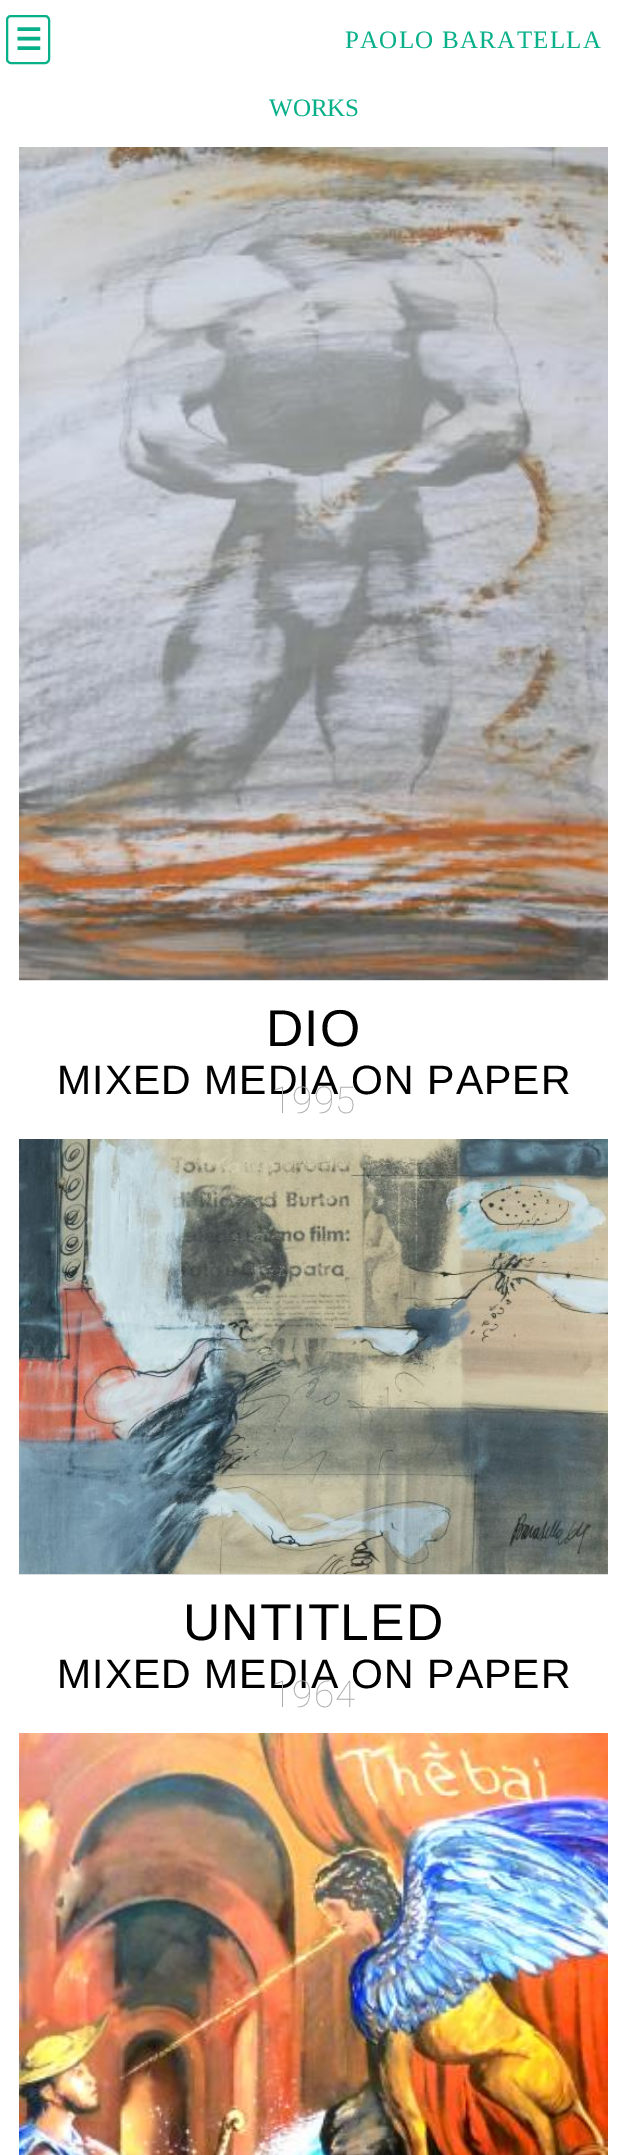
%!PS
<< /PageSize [627 2155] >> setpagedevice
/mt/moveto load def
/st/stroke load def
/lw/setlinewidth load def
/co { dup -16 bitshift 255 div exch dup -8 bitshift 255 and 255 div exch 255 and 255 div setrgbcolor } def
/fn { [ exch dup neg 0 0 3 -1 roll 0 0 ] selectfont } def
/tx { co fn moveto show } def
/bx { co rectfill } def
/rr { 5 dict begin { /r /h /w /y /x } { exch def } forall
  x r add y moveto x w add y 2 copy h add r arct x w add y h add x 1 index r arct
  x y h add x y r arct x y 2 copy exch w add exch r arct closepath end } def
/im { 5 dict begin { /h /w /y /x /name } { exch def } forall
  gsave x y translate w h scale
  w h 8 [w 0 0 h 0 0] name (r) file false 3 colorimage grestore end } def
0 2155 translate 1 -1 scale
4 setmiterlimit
0 0 627 2155 16#FFFFFF bx
16#07B089 co
2 lw
7 16 42 47 4 rr st
(media/1.raw) 19 147 589 833 im
19 980 589 1 16#DEDEDE bx
(media/2.raw) 19 1139 589 435 im
19 1574 589 1 16#DEDEDE bx
(media/3.raw) 19 1733 589 422 im
(☰) 15 50 /DejaVuSans-Bold 30 16#07B089 tx
/LiberationSerif-Regular 25 fn
345 48 mt 1.25 0 (PAOLO BARATELLA) ashow
(WORKS) 269 116 /LiberationSerif-Regular 25 16#07B089 tx
/LiberationSans-Regular 51.75 fn
16#000000 co
266 1046 mt 1 0 (DIO) ashow
/LiberationSans-Regular 41 fn
57 1094 mt 1 0 (MIXED MEDIA ON PAPER) ashow
/Roboto-Thin 37 fn
16#ABABAB co
271 1113 mt 1 0 (1995) ashow
/LiberationSans-Regular 51.75 fn
16#000000 co
183 1640 mt 1 0 (UNTITLED) ashow
/LiberationSans-Regular 41 fn
57 1688 mt 1 0 (MIXED MEDIA ON PAPER) ashow
/Roboto-Thin 37 fn
16#ABABAB co
271 1707 mt 1 0 (1964) ashow
showpage
